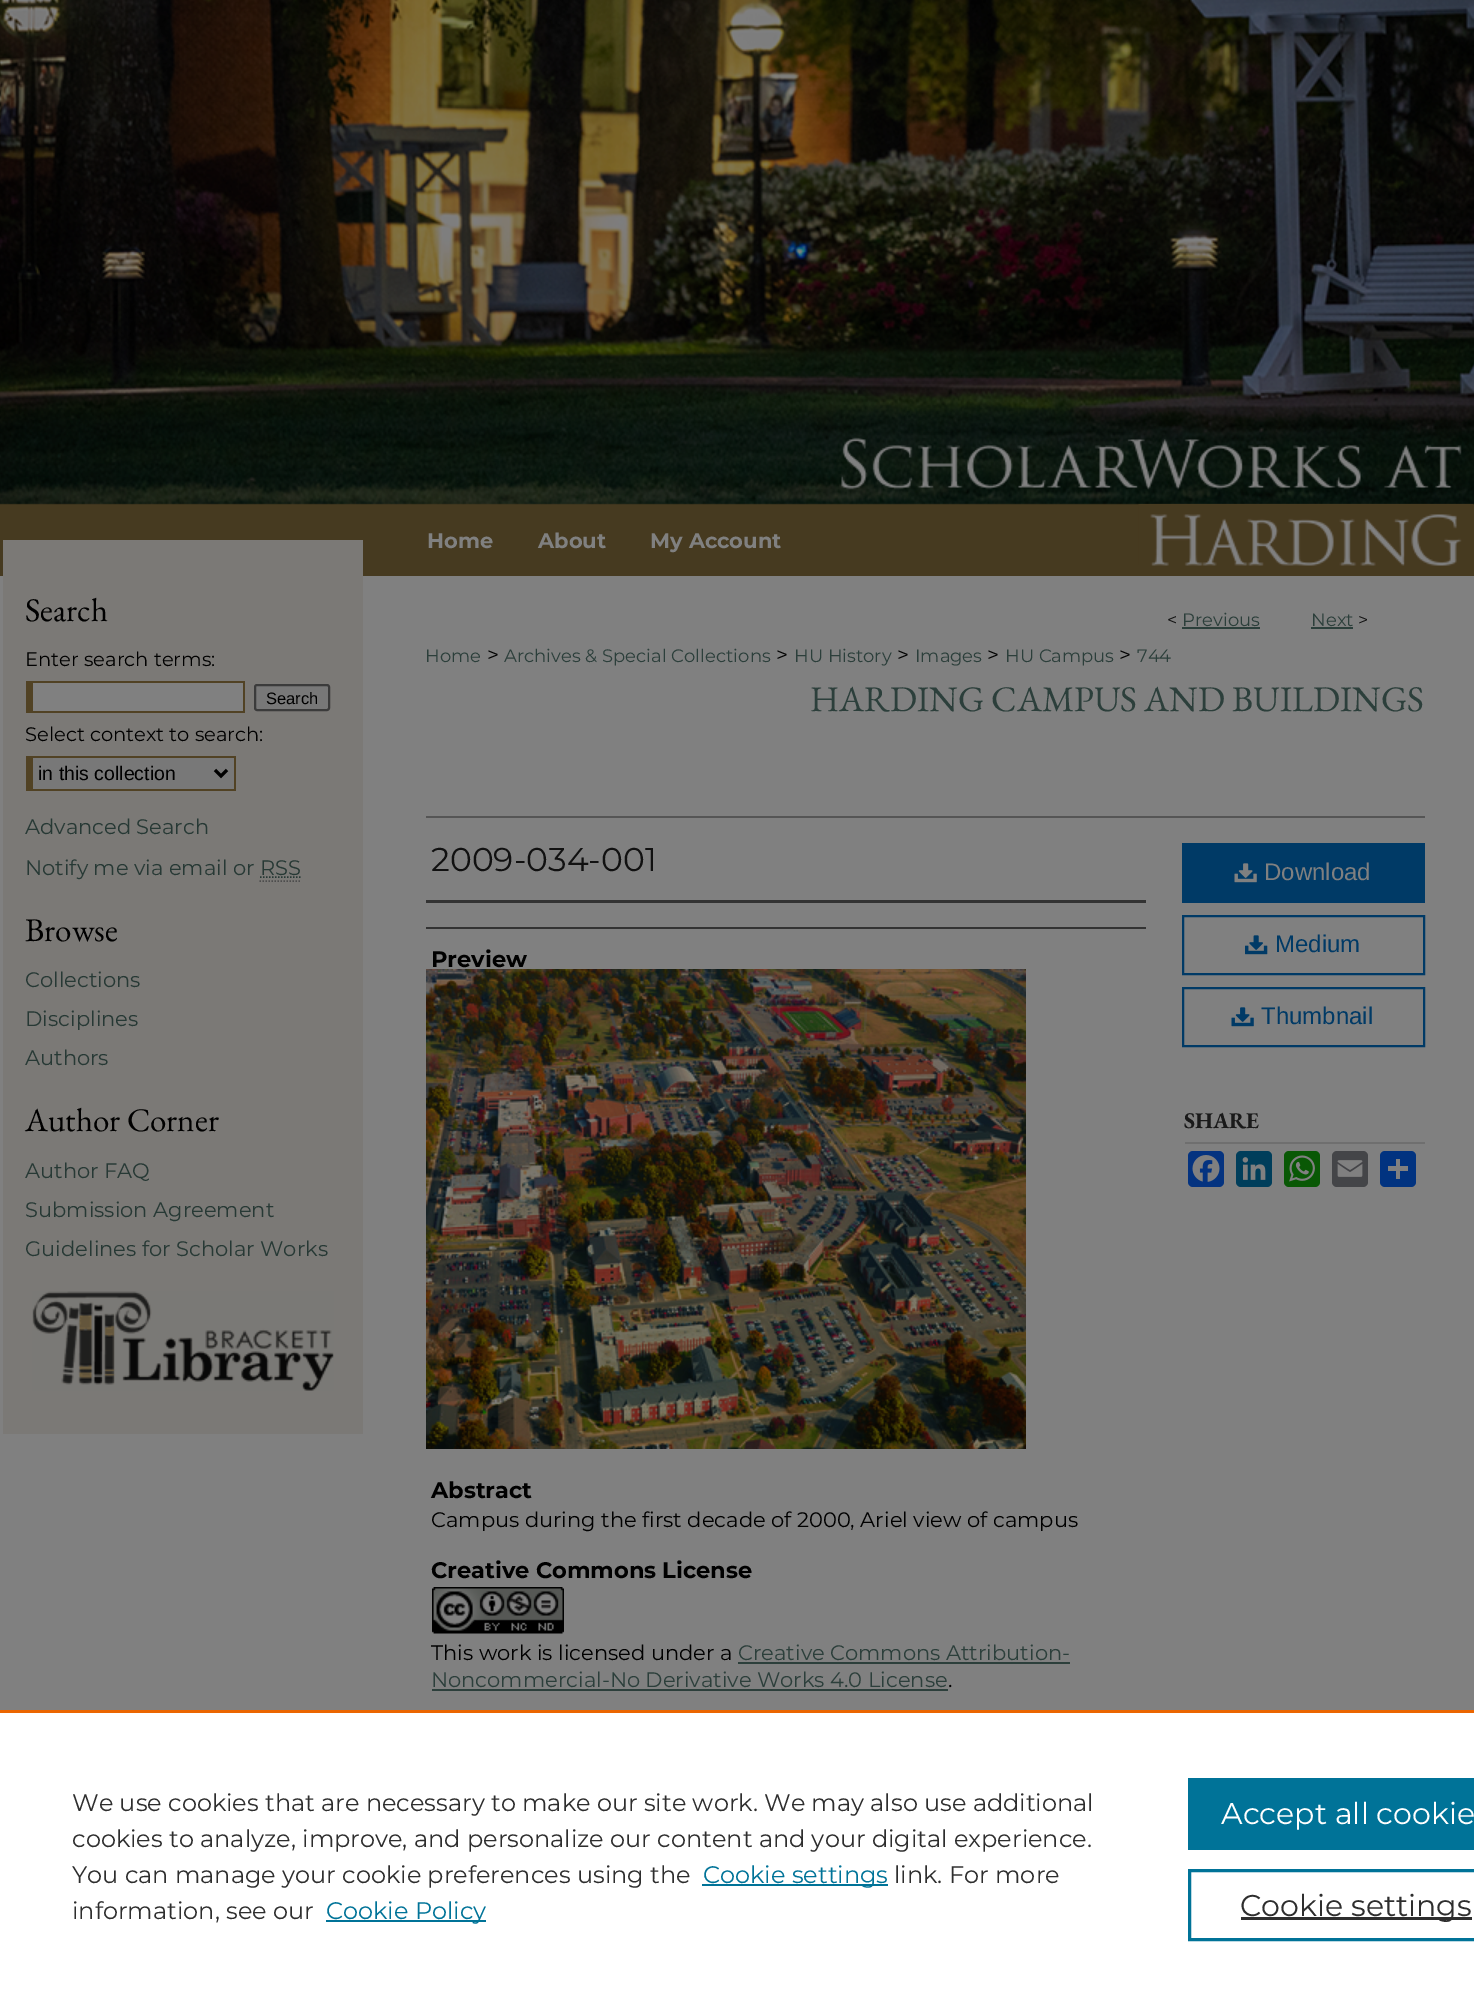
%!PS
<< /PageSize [1474 2000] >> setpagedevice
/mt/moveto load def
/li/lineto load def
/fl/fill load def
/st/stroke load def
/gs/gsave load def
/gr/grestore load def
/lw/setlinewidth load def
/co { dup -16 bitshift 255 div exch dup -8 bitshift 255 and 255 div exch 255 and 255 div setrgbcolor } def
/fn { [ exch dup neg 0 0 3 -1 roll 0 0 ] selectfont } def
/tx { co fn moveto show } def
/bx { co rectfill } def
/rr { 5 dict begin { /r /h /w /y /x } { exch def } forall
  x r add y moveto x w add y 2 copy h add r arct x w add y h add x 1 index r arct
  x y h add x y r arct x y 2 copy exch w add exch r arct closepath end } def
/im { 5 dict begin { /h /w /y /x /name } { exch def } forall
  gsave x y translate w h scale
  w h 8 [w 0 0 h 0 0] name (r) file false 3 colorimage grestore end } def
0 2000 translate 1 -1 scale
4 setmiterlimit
0 0 1474 2000 16#808080 bx
(media/1.raw) 0 0 1474 576 im
(media/2.raw) 841 437 621 129 im
(media/3.raw) 1138 504 335 61 im
3 540 360 894 16#7B7976 bx
33 683 210 28 16#808080 bx
26 681 219 2 16#514224 bx
243 681 2 32 16#514224 bx
26 711 219 2 16#514224 bx
26 681 7 32 16#514224 bx
16#787878 co
255 685 74 25 2 rr gs fl gr
16#3B3B3B co
2 lw
st
33 758 201 31 16#787878 bx
26 756 210 2 16#514224 bx
234 756 2 35 16#514224 bx
26 789 210 2 16#514224 bx
26 756 7 35 16#514224 bx
16#000000 co
3 lw
215 770 mt 221 776 li 227 770 li st
16#273935 co
1.5 lw
[1.5 1.5] 0 setdash
260 877 mt 301 877 li st
16#4D4D4D co
259.5 881 mt 301.5 881 li st
(media/4.raw) 32 1291 302 100 im
1182 627 78 2 16#2C3F3B bx
1311 627 42 2 16#2C3F3B bx
426 816 999 2 16#555555 bx
426 900 720 3 16#333333 bx
426 927 720 2 16#333333 bx
(media/5.raw) 426 969 600 480 im
(media/6.raw) 432 1587 132 47 im
738 1662 332 2 16#2C3F3B bx
432 1689 516 2 16#2C3F3B bx
1182 843 243 60 16#003A66 bx
(media/7.raw) 1234 863 23 20 im
2 lw
[] 0 setdash
1183 916 241 58 rectstroke
(media/8.raw) 1245 935 23 20 im
1183 988 241 58 rectstroke
(media/9.raw) 1231 1007 23 20 im
1185 1142 240 2 16#6F6F6F bx
16#043380 co
1188 1151 36 36 5 rr fl
(media/10.raw) 1192 1155 28 27 im
16#003E5B co
1236 1151 36 36 5 rr fl
(media/11.raw) 1242 1157 24 23 im
16#095805 co
1284 1151 36 36 5 rr fl
(media/12.raw) 1289 1155 26 27 im
16#444548 co
1332 1151 36 36 5 rr fl
(media/13.raw) 1337 1160 26 17 im
16#013380 co
1380 1151 36 36 5 rr fl
1396 1159 4 20 16#808080 bx
1388 1166 20 5 16#808080 bx
0 1713 1474 287 16#FFFFFF bx
0 1710 1474 3 16#EB6500 bx
702 1884 186 2 16#007398 bx
326 1920 160 2 16#007398 bx
1188 1778 286 72 16#007398 bx
3 lw
1189.5 1870.5 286 69 rectstroke
1241 1917 231 3 16#2E2E2E bx
(Home) 427 548 /Montserrat-Bold 21 16#808080 tx
(About) 538 548 /Montserrat-Bold 21 16#808080 tx
(My Account) 650 548 /Montserrat-Bold 21 16#808080 tx
(Search) 25 621 /EBGaramond-Regular 33 16#000000 tx
(Enter search terms:) 25 666 /Montserrat-Regular 19.5 16#000000 tx
(Search) 266 704 /LiberationSans-Regular 16.5 16#000000 tx
(Select context to search:) 25 741 /Montserrat-Regular 19.5 16#000000 tx
(in this collection) 38 780 /LiberationSans-Regular 19.5 16#000000 tx
(Advanced Search) 25 834 /Montserrat-Regular 21 16#273935 tx
(Notify me via email or RSS) 25 875 /Montserrat-Regular 21 16#273935 tx
(Browse) 25 941 /EBGaramond-Regular 33 16#000000 tx
(Collections) 25 987 /Montserrat-Regular 21 16#273935 tx
(Disciplines) 25 1026 /Montserrat-Regular 21 16#273935 tx
(Authors) 25 1065 /Montserrat-Regular 21 16#273935 tx
(Author Corner) 25 1131 /EBGaramond-Regular 33 16#000000 tx
(Author FAQ) 25 1178 /Montserrat-Regular 21 16#273935 tx
(Submission Agreement) 25 1217 /Montserrat-Regular 21 16#273935 tx
(Guidelines for Scholar Works) 25 1256 /Montserrat-Regular 21 16#273935 tx
(<) 1167 626 /Montserrat-Regular 18 16#111111 tx
(Previous) 1182 626 /Montserrat-Regular 18 16#2C3F3B tx
(Next) 1311 626 /Montserrat-Regular 18 16#2C3F3B tx
(>) 1358 626 /Montserrat-Regular 18 16#111111 tx
(Home) 425 662 /Montserrat-Regular 18 16#2C3F3B tx
(>) 487 662 /Montserrat-Regular 21 16#000000 tx
(Archives & Special Collections) 504 662 /Montserrat-Regular 18 16#2C3F3B tx
(>) 776 662 /Montserrat-Regular 21 16#000000 tx
(HU History) 794 662 /Montserrat-Regular 18 16#2C3F3B tx
(>) 897 662 /Montserrat-Regular 21 16#000000 tx
(Images) 915 662 /Montserrat-Regular 18 16#2C3F3B tx
(>) 987 662 /Montserrat-Regular 21 16#000000 tx
(HU Campus) 1005 662 /Montserrat-Regular 18 16#2C3F3B tx
(>) 1119 662 /Montserrat-Regular 21 16#000000 tx
(744) 1137 662 /Montserrat-Regular 18 16#2C3F3B tx
(HARDING CAMPUS AND BUILDINGS) 810 711 /EBGaramond-Regular 36 16#2C3F3B tx
(2009-034-001) 431 871 /Montserrat-Regular 33 16#111111 tx
(Preview) 431 967 /Montserrat-Bold 22.5 16#000000 tx
(Abstract) 431 1498 /Montserrat-Bold 22.5 16#000000 tx
(Campus during the first decade of 2000, Ariel view of campus) 431 1527 /Montserrat-Regular 21 16#000000 tx
(Creative Commons License) 431 1578 /Montserrat-Bold 22.5 16#000000 tx
(This work is licensed under a) 431 1660 /Montserrat-Regular 21 16#000000 tx
(Creative Commons Attribution-) 738 1660 /Montserrat-Regular 21 16#2C3F3B tx
(Noncommercial-No Derivative Works 4.0 License) 431 1687 /Montserrat-Regular 21 16#2C3F3B tx
(.) 948 1687 /Montserrat-Regular 21 16#000000 tx
(Download) 1264 880 /LiberationSans-Regular 24 16#808080 tx
(Medium) 1275 952 /LiberationSans-Regular 24 16#003A66 tx
(Thumbnail) 1261 1024 /LiberationSans-Regular 24 16#003A66 tx
(SHARE) 1184 1128 /EBGaramond-Bold 22.5 16#1A1A1A tx
(We use cookies that are necessary to make our site work. We may also use additional) 72 1811 /Montserrat-Regular 24 16#2E2E2E tx
(cookies to analyze, improve, and personalize our content and your digital experience.) 72 1847 /Montserrat-Regular 24 16#2E2E2E tx
(You can manage your cookie preferences using the) 72 1883 /Montserrat-Regular 24 16#2E2E2E tx
(Cookie settings) 703 1883 /Montserrat-Regular 24 16#007398 tx
(link. For more) 894 1883 /Montserrat-Regular 24 16#2E2E2E tx
(information, see our) 72 1919 /Montserrat-Regular 24 16#2E2E2E tx
(Cookie Policy) 326 1919 /Montserrat-Regular 24 16#007398 tx
(Accept all cookie) 1221 1824 /Montserrat-Regular 30 16#FFFFFF tx
(Cookie settings) 1240 1916 /Montserrat-Regular 30 16#2E2E2E tx
showpage
